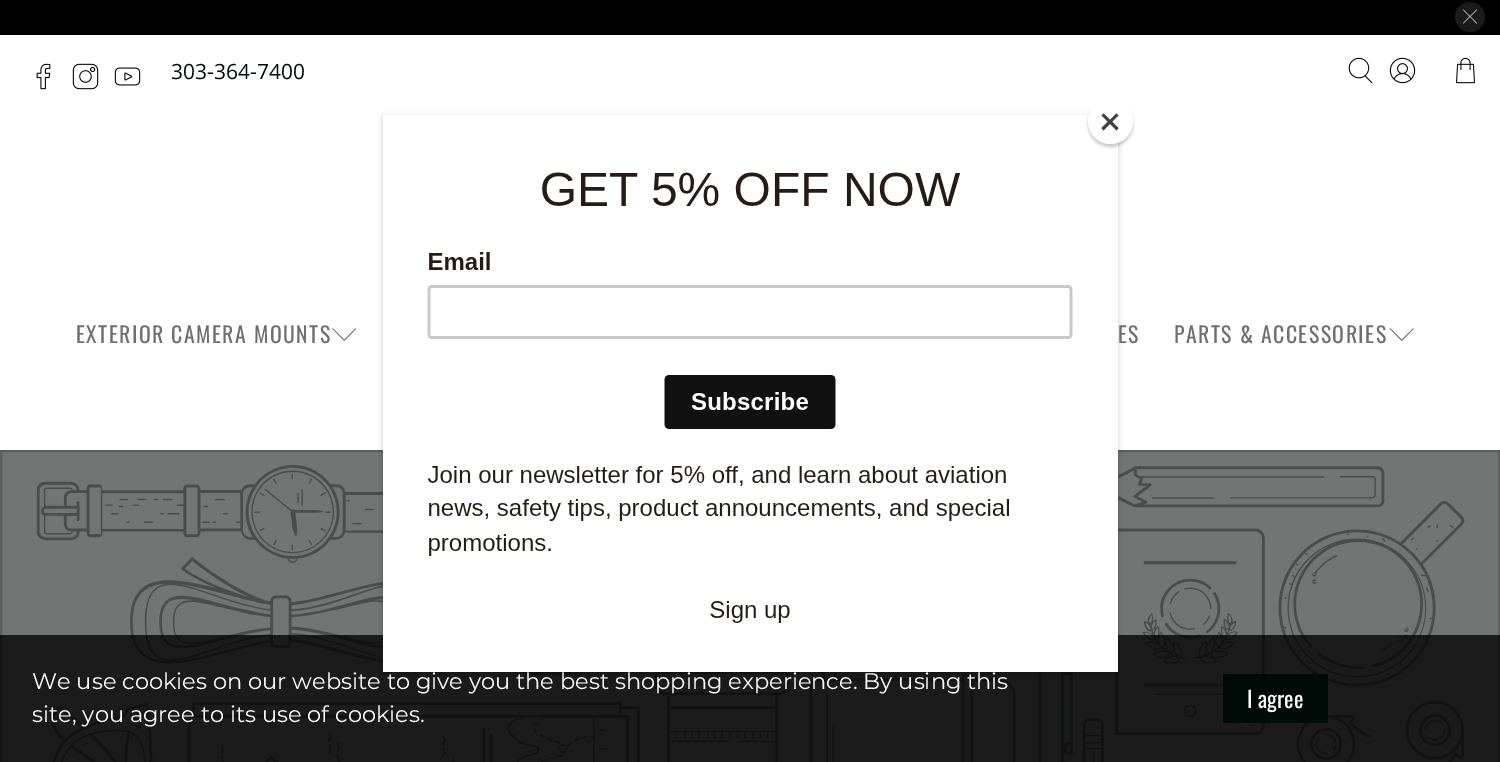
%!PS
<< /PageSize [1500 762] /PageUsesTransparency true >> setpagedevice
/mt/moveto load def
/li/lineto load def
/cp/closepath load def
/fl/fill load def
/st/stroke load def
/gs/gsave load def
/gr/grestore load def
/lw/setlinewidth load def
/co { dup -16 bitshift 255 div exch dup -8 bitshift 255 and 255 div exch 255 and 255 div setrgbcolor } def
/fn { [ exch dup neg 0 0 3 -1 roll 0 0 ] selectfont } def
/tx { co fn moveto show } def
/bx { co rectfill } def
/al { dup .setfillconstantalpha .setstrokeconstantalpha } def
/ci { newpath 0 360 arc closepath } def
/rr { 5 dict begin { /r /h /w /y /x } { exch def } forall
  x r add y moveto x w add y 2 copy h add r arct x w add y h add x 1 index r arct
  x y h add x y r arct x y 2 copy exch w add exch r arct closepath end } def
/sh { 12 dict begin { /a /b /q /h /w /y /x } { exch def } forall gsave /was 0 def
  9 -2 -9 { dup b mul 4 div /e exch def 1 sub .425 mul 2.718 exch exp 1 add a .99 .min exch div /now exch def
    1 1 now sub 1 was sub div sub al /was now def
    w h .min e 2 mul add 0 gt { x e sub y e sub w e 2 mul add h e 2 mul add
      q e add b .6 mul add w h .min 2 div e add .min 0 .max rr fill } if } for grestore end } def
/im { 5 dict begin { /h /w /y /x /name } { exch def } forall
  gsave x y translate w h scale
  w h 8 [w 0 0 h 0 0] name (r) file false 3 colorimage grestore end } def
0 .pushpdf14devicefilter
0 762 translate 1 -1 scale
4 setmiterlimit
0 0 1500 762 16#FFFFFF bx
0 0 1500 35 16#000000 bx
16#1A1A1A co
1470 17 15 ci fl
(media/1.raw) 1463 9 14 15 im
(media/2.raw) 36 63 15 27 im
(media/3.raw) 72 63 27 27 im
(media/4.raw) 114 67 27 19 im
(media/5.raw) 1348 57 25 27 im
(media/6.raw) 1389 57 27 27 im
(media/7.raw) 1456 57 19 27 im
16#737474 co
1 451 mt 1499 451 li 1499 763 li 1 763 li cp gs fl gr
16#5C5E5D co
2 lw
st
(media/11.raw) 36 465 1429 297 im
0.77 al
0 635 1500 127 16#000000 bx
1 al
383 117 735 558 0 3 .2 sh
(media/8.raw) 383 115 735 557 im
1088 102 45 45 22.5 1.5 .2 sh
16#FFFFFF co
1110.5 121.5 22.5 ci fl
16#414141 co
1116.5 113.5 mt 1118.5 115.5 li 1103.5 130.5 li 1101.5 128 li cp fl
1101.5 115.5 mt 1103.5 113.5 li 1118.5 128 li 1116.5 130.5 li cp fl
(media/9.raw) 332 328 25 13 im
(media/10.raw) 1389 328 25 13 im
1223 674 105 49 16#000A07 bx
(303-364-7400) 171 79 /OpenSans-Regular 21 16#000A07 tx
/Oswald-Regular 21.75 fn
16#6F6F6F co
76 343 mt 1.5 0 (EXTERIOR CAMERA MOUNTS) ashow
1118 343 mt 1.5 0 (ES) ashow
1174 343 mt 1.5 0 (PARTS & ACCESSORIES) ashow
(We use cookies on our website to give you the best shopping experience. By using this) 32 689 /Montserrat-Regular 22.5 16#FFFFFF tx
(site, you agree to its use of cookies.) 32 722 /Montserrat-Regular 22.5 16#FFFFFF tx
(I agree) 1247 708 /Oswald-Regular 22.5 16#FFFFFF tx
.poppdf14devicefilter showpage
